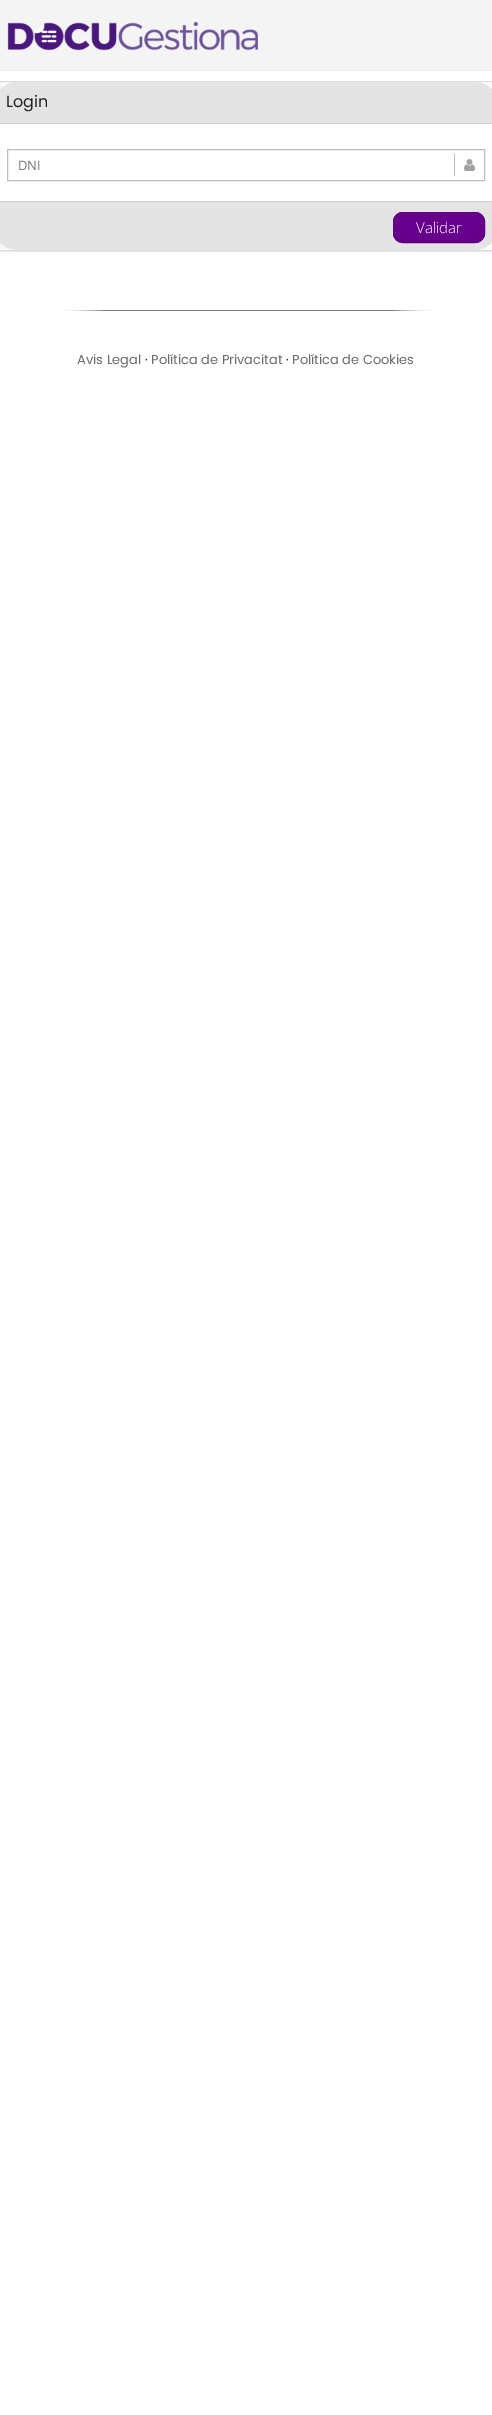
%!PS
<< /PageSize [492 2415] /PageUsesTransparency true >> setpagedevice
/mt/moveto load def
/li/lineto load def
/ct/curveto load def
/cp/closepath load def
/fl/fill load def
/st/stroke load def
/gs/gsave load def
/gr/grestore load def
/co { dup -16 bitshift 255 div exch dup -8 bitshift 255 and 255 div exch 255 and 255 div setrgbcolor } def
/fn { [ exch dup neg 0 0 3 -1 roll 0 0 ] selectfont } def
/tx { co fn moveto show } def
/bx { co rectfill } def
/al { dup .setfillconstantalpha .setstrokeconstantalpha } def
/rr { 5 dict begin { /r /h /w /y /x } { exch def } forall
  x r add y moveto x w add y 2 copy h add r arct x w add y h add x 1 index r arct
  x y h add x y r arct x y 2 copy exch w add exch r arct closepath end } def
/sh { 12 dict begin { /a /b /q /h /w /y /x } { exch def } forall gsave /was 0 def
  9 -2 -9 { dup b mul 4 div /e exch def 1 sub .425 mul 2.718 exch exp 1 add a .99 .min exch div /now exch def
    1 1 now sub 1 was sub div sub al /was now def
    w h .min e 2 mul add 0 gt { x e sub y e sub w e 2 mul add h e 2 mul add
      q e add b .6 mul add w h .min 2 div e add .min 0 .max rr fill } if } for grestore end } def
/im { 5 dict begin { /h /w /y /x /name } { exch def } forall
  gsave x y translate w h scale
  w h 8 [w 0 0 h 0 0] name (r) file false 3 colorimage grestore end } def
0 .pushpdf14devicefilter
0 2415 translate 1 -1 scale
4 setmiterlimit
0 0 492 2415 16#FFFFFF bx
0 0 492 70 16#F4F4F4 bx
0 70 492 1 16#EEEEEE bx
(media/1.raw) 7 22 251 29 im
16#ECECEC co
-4 82 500 170 2 .5 1 sh
16#FBFBFB co
-.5 81.5 mt 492.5 81.5 li 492.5 250.5 li -.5 250.5 li cp gs fl gr
16#DDDDDD co
st
16#E4E4E4 co
18 82 mt 474 82 li 488 82 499 93 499 107 ct 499 124 li -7 124 li -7 107 li -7 93 4 82 18 82 ct cp fl
0 123 492 1 16#CDCDCD bx
0 124 492 77 16#FFFFFF bx
16#BDBDBD co
7.5 149.5 477 31 rectstroke
454 154 1 22 16#BDBDBD bx
(media/2.raw) 464 159 11 12 im
16#E4E4E4 co
-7 201 mt 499 201 li 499 225 li 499 239 488 250 474 250 ct 18 250 li 4 250 -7 239 -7 225 ct cp fl
0 201 492 1 16#CDCDCD bx
16#66008C co
393 212 92 31 10 rr fl
16#610085 co
394 231 mt 394 244 405 242 415 242 ct 463 242 li 473 242 484 244 484 231 ct 484 236 480 240 475 240 ct 403 240 li 398 240 394 236 394 231 ct cp fl
16#66008C co
393.5 212.5 91 30 9.5 rr st
(media/3.raw) 62 310 371 1 im
(Login) 6 107 /Poppins-Regular 16 16#232323 tx
(DNI) 18 170 /OpenSans-Regular 13 16#757575 tx
(Validar) 416 233 /OpenSans-Light 15 16#FFFFFF tx
(Avis Legal) 77 364 /Poppins-Regular 13 16#696969 tx
(·) 145 364 /Poppins-Regular 13 16#333333 tx
(Política de Privacitat) 151 364 /Poppins-Regular 13 16#696969 tx
(·) 286 364 /Poppins-Regular 13 16#333333 tx
(Política de Cookies) 292 364 /Poppins-Regular 13 16#696969 tx
.poppdf14devicefilter showpage
